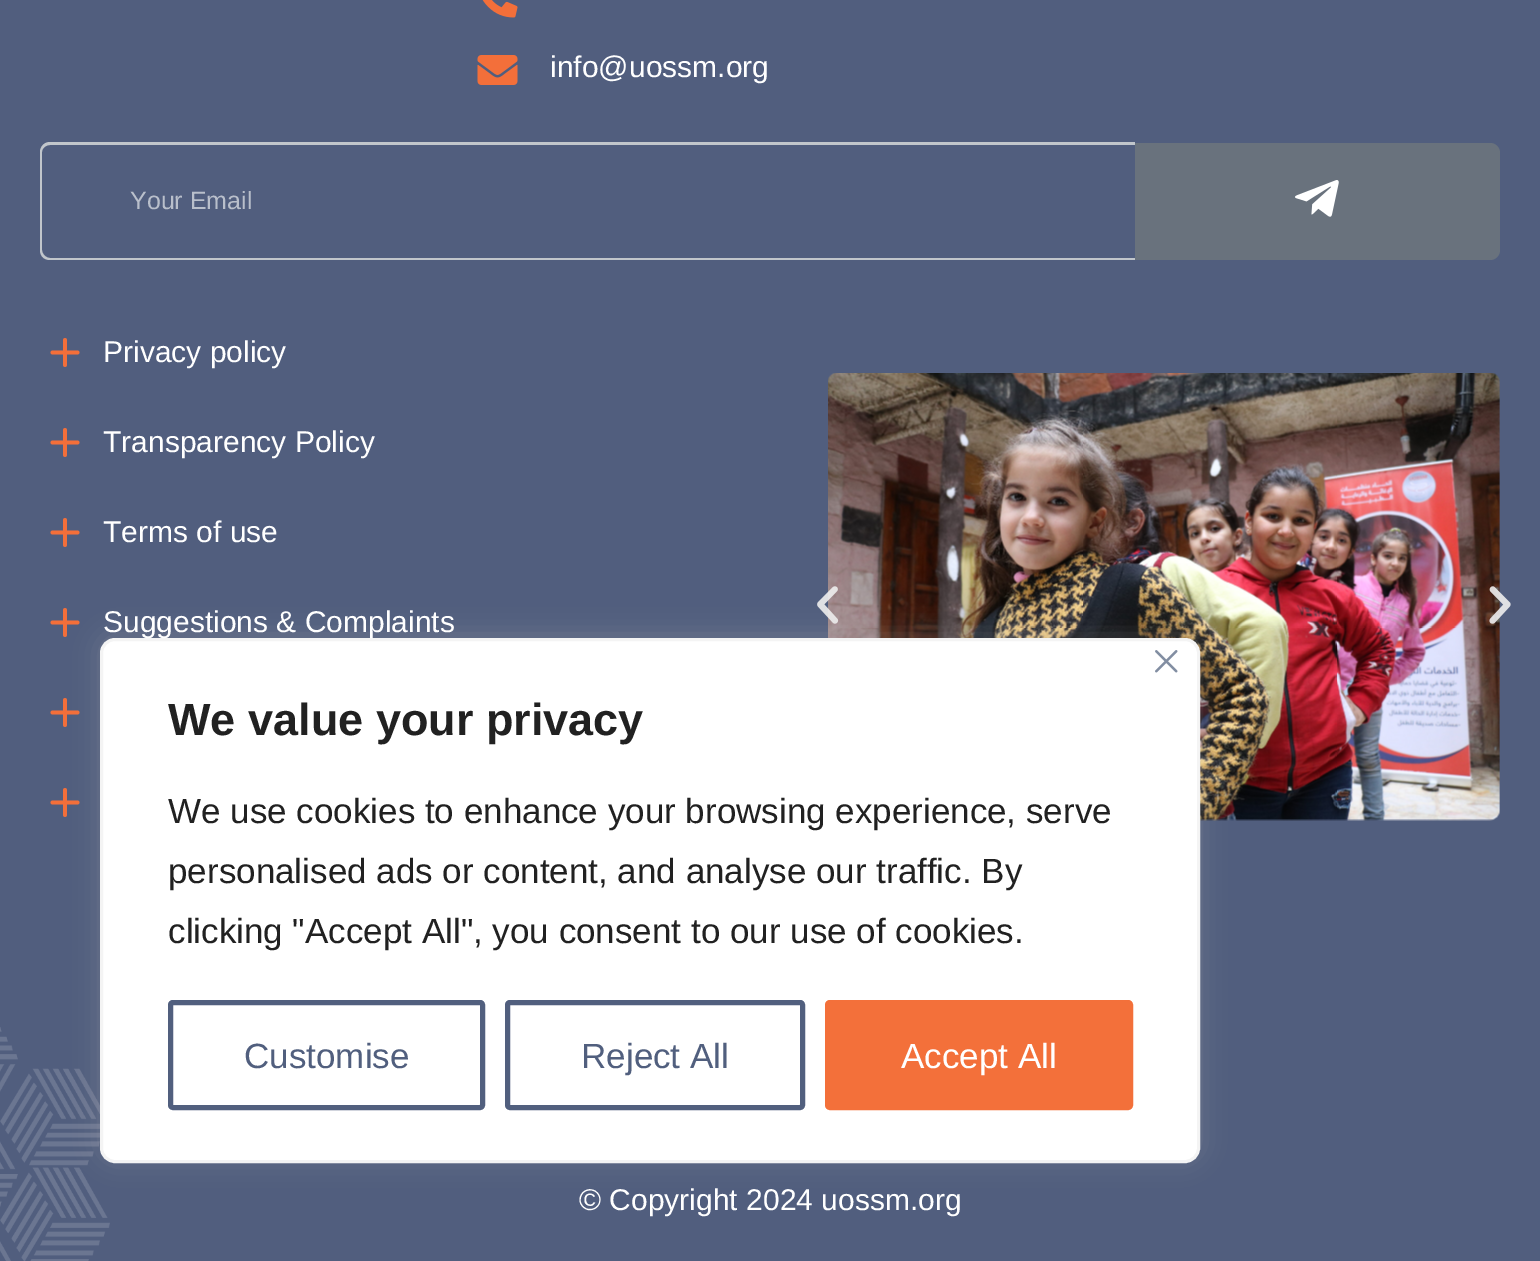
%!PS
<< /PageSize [1540 1261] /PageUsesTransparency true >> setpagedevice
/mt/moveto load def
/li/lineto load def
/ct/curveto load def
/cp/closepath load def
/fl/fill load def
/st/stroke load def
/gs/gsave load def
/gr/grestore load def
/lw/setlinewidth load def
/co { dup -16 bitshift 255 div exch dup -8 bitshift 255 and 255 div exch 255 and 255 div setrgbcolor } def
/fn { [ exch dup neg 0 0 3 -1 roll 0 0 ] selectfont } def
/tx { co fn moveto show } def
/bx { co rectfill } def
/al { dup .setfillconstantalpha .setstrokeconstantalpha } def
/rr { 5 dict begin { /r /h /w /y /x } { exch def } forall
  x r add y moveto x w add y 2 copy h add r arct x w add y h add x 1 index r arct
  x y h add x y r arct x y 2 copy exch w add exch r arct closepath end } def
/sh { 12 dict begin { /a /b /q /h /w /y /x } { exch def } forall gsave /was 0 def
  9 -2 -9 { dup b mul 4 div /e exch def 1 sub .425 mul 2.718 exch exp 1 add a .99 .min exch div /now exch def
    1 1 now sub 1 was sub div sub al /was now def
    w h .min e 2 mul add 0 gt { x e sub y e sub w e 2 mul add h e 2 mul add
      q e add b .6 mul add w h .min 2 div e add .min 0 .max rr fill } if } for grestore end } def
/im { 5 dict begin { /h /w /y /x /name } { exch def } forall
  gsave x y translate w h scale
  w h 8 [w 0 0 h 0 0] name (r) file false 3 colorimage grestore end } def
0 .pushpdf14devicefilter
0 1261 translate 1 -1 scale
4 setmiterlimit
0 0 1540 1261 16#515E7E bx
(media/1.raw) 482 0 36 18 im
(media/2.raw) 477 55 41 30 im
16#C1C6CB co
50 142 mt 1135 142 li 1135 260 li 50 260 li 44 260 40 256 40 250 ct 40 152 li 40 147 44 142 50 142 ct cp 50 145 mt 1135 145 li 1135 258 li 50 258 li 46 258 42 254 42 250 ct 42 152 li 42 148 46 145 50 145 ct cp eofill
16#69727D co
1135 143 mt 1490 143 li 1495.5 143 1500 147.5 1500 153 ct 1500 250 li 1500 255.5 1495.5 260 1490 260 ct 1135 260 li cp fl
(media/3.raw) 1295 180 44 37 im
16#F36F3A co
3.8 lw
1 setlinecap
1 setlinejoin
52.5 352.5 mt 77.5 352.5 li 65 365 mt 65 340 li st
52.5 442.5 mt 77.5 442.5 li 65 455 mt 65 430 li st
52.5 532.5 mt 77.5 532.5 li 65 545 mt 65 520 li st
52.5 622.5 mt 77.5 622.5 li 65 635 mt 65 610 li st
52.5 712.5 mt 77.5 712.5 li 65 725 mt 65 700 li st
52.5 802.5 mt 77.5 802.5 li 65 815 mt 65 790 li st
(media/4.raw) 828 373 672 448 im
(media/5.raw) 817 586 22 38 im
(media/6.raw) 1489 586 22 38 im
(media/7.raw) 0 1027 110 234 im
16#ACABAB co
100 635 1100 525 15 12.5 .3 sh
16#FFFFFF co
101.5 639.5 1097 522 13.5 rr gs fl gr
16#F4F4F4 co
3 lw
0 setlinecap
0 setlinejoin
st
(media/8.raw) 1155 650 23 23 im
16#515F7E co
5 lw
170.5 1002.5 312 105 2.5 rr st
507.5 1002.5 295 105 2.5 rr st
16#F3703A co
827.5 1002.5 303 105 2.5 rr gs fl gr
st
(info@uossm.org) 550 77 /LiberationSans-Regular 30 16#FFFFFF tx
(Your Email) 130 209 /LiberationSans-Regular 25 16#B9BFCB tx
(Privacy policy) 103 362 /LiberationSans-Regular 30 16#FFFFFF tx
(Transparency Policy) 103 452 /LiberationSans-Regular 30 16#FFFFFF tx
(Terms of use) 103 542 /LiberationSans-Regular 30 16#FFFFFF tx
(Suggestions & Complaints) 103 632 /LiberationSans-Regular 30 16#FFFFFF tx
(© Copyright 2024 uossm.org) 579 1210 /LiberationSans-Regular 30 16#FFFFFF tx
(We value your privacy) 168 735 /LiberationSans-Bold 45 16#212121 tx
(We use cookies to enhance your browsing experience, serve) 168 823 /LiberationSans-Regular 35 16#212121 tx
(personalised ads or content, and analyse our traffic. By) 168 883 /LiberationSans-Regular 35 16#212121 tx
(clicking "Accept All", you consent to our use of cookies.) 168 943 /LiberationSans-Regular 35 16#212121 tx
(Customise) 244 1068 /LiberationSans-Regular 35 16#515F7E tx
(Reject All) 581 1068 /LiberationSans-Regular 35 16#515F7E tx
(Accept All) 901 1068 /LiberationSans-Regular 35 16#FFFFFF tx
.poppdf14devicefilter showpage
